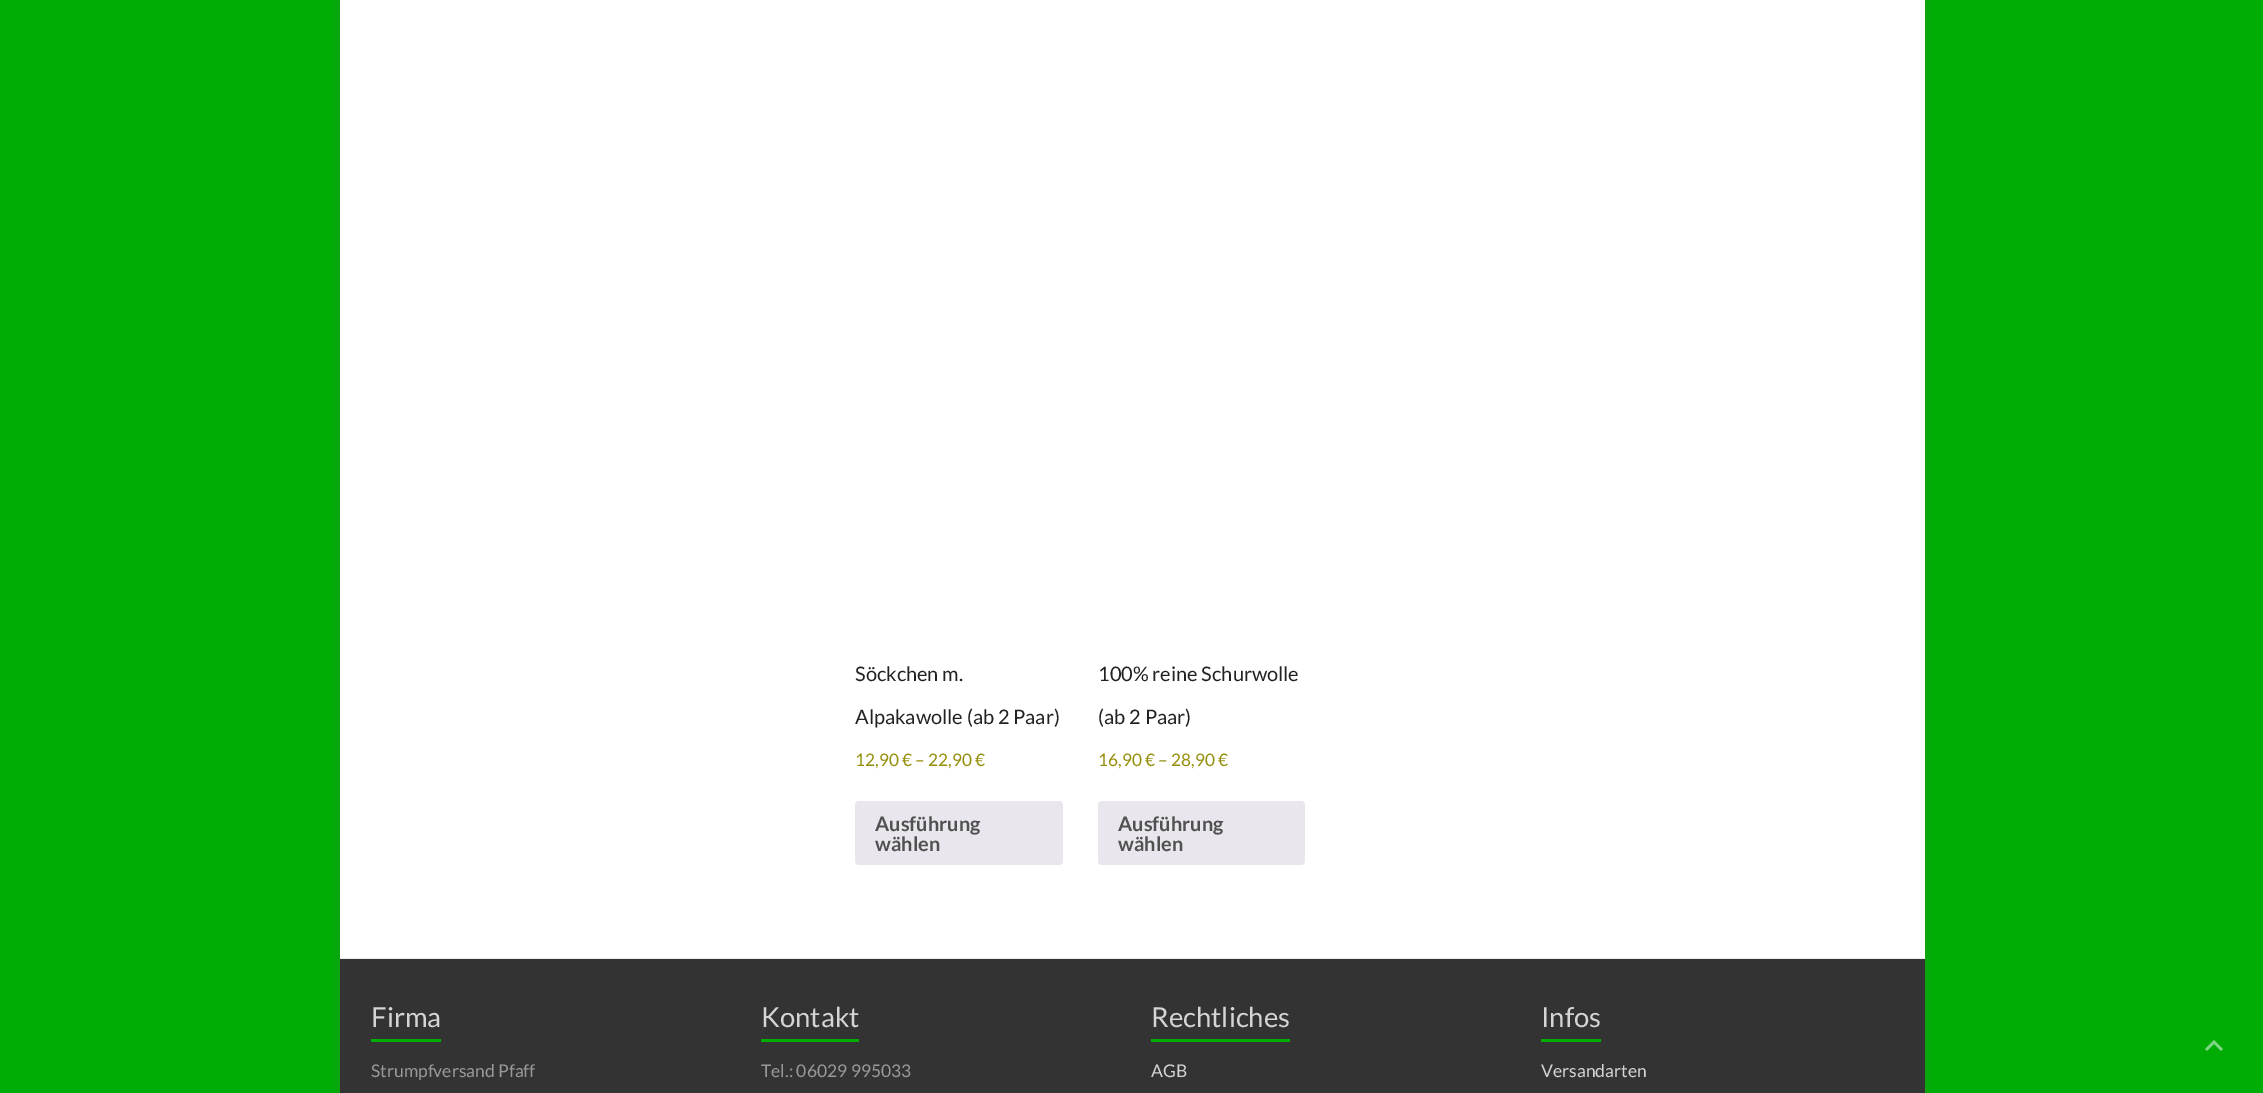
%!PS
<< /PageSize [2263 1093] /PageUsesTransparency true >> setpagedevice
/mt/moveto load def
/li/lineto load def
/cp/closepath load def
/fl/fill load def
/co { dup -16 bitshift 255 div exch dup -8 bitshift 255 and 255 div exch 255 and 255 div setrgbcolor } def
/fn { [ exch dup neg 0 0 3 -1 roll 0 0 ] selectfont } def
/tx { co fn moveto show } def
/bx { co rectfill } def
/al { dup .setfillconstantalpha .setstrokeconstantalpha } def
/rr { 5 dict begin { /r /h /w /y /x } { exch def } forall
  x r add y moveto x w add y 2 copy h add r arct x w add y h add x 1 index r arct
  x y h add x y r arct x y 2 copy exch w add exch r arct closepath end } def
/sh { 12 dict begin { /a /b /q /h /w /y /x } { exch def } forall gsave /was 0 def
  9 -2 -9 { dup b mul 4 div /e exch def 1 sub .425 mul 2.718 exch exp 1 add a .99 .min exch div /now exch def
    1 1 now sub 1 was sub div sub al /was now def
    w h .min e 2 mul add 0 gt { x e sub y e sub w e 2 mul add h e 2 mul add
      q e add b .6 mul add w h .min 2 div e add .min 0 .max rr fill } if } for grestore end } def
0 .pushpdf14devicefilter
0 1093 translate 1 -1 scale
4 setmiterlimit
0 0 2263 1093 16#00AD05 bx
16#646464 co
340 -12 1585 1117 0 4 .3 sh
340 0 1585 958 16#FFFFFF bx
16#E9E6ED co
855 801 208 64 4 rr fl
1098 801 207 64 4 rr fl
340 959 1585 134 16#333333 bx
340 958 1585 1 16#EAEAEA bx
371 1039 70 3 16#00AD05 bx
761 1039 98 3 16#00AD05 bx
1151 1039 139 3 16#00AD05 bx
1541 1039 60 3 16#00AD05 bx
16#80D682 co
2221 1051 mt 2214 1044 li 2207 1051 li 2205 1049 li 2214 1040 li 2223 1049 li cp fl
(Söckchen m.) 855 681 /Lato-Regular 20 16#222222 tx
(Alpakawolle \(ab 2 Paar\)) 855 724 /Lato-Regular 20 16#222222 tx
(12,90 € – 22,90 €) 855 766 /Lato-Regular 17.25 16#958E09 tx
(Ausführung) 875 831 /Lato-Bold 20 16#515151 tx
(wählen) 875 851 /Lato-Bold 20 16#515151 tx
(100% reine Schurwolle) 1098 681 /Lato-Regular 20 16#222222 tx
(\(ab 2 Paar\)) 1098 724 /Lato-Regular 20 16#222222 tx
(16,90 € – 28,90 €) 1098 766 /Lato-Regular 17.25 16#958E09 tx
(Ausführung) 1118 831 /Lato-Bold 20 16#515151 tx
(wählen) 1118 851 /Lato-Bold 20 16#515151 tx
(Firma) 371 1027 /Lato-Regular 27.5 16#D5D5D5 tx
(Strumpfversand Pfaff) 371 1077 /Lato-Regular 17.5 16#999999 tx
(Kontakt) 761 1027 /Lato-Regular 27.5 16#D5D5D5 tx
(Tel.: 06029 995033) 761 1077 /Lato-Regular 17.5 16#999999 tx
(Rechtliches) 1151 1027 /Lato-Regular 27.5 16#D5D5D5 tx
(AGB) 1151 1077 /Lato-Regular 17.5 16#D5D5D5 tx
(Infos) 1541 1027 /Lato-Regular 27.5 16#D5D5D5 tx
(Versandarten) 1541 1077 /Lato-Regular 17.5 16#D5D5D5 tx
.poppdf14devicefilter showpage
